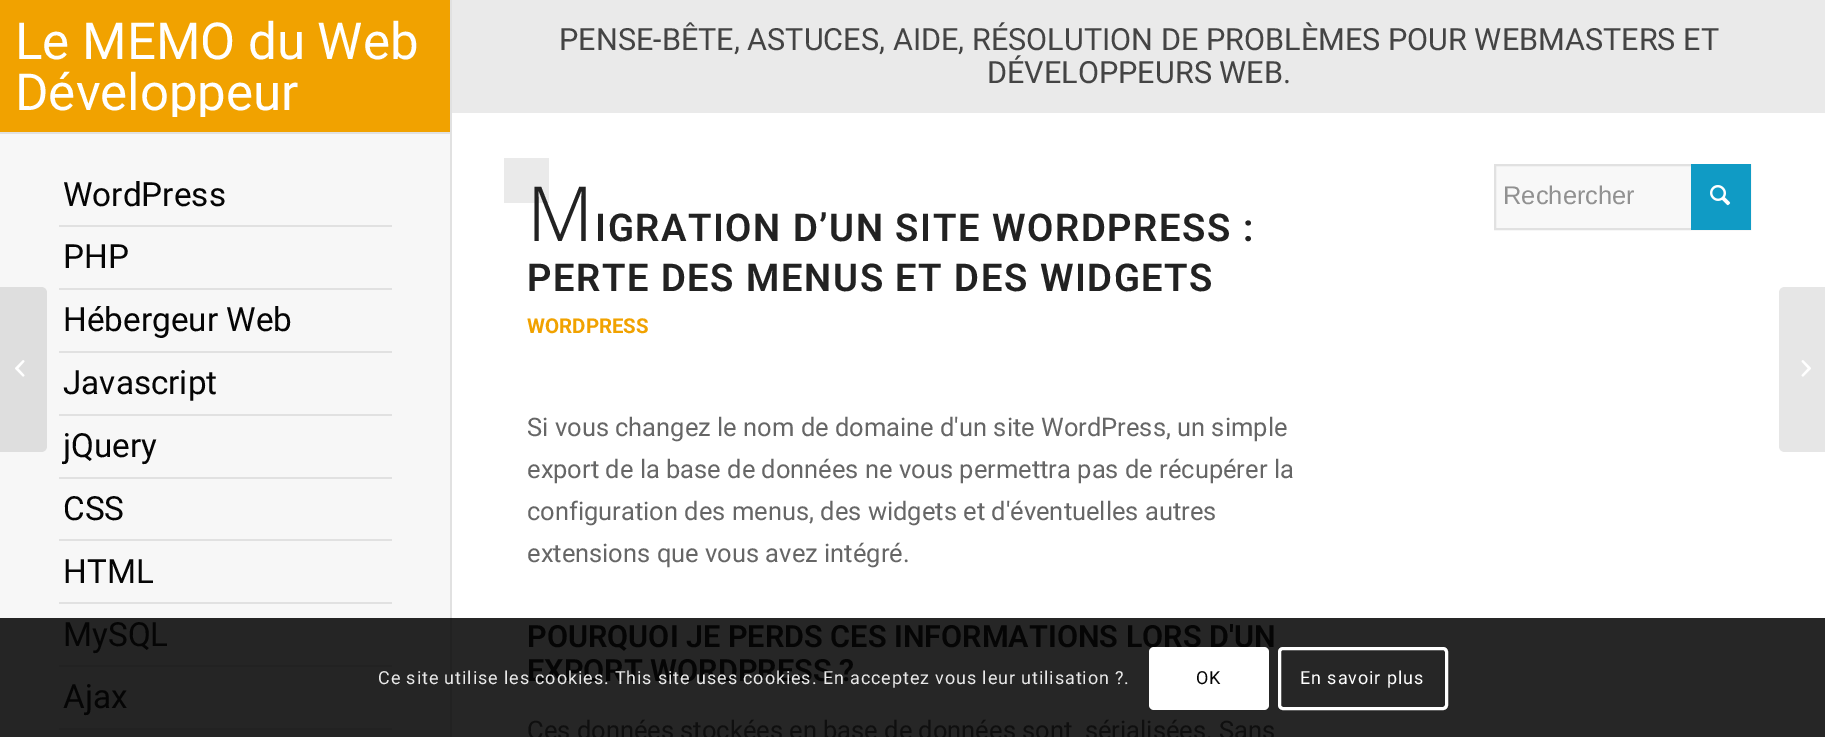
%!PS
<< /PageSize [1825 737] >> setpagedevice
/mt/moveto load def
/li/lineto load def
/ct/curveto load def
/cp/closepath load def
/fl/fill load def
/st/stroke load def
/gs/gsave load def
/gr/grestore load def
/lw/setlinewidth load def
/co { dup -16 bitshift 255 div exch dup -8 bitshift 255 and 255 div exch 255 and 255 div setrgbcolor } def
/fn { [ exch dup neg 0 0 3 -1 roll 0 0 ] selectfont } def
/tx { co fn moveto show } def
/bx { co rectfill } def
/rr { 5 dict begin { /r /h /w /y /x } { exch def } forall
  x r add y moveto x w add y 2 copy h add r arct x w add y h add x 1 index r arct
  x y h add x y r arct x y 2 copy exch w add exch r arct closepath end } def
/im { 5 dict begin { /h /w /y /x /name } { exch def } forall
  gsave x y translate w h scale
  w h 8 [w 0 0 h 0 0] name (r) file false 3 colorimage grestore end } def
0 737 translate 1 -1 scale
4 setmiterlimit
0 0 1825 737 16#FFFFFF bx
0 0 450 132 16#F1A200 bx
0 132 450 2 16#E1E1E1 bx
0 134 450 484 16#F7F7F7 bx
0 618 450 119 16#252525 bx
59 225 333 2 16#E1E1E1 bx
59 288 333 2 16#E1E1E1 bx
59 351 333 2 16#E1E1E1 bx
59 414 333 2 16#E1E1E1 bx
59 477 333 2 16#E1E1E1 bx
59 539 333 2 16#E1E1E1 bx
59 602 333 2 16#E1E1E1 bx
59 665 333 2 16#222222 bx
59 728 333 2 16#222222 bx
452 618 1373 119 16#262626 bx
450 0 2 618 16#E1E1E1 bx
450 618 2 119 16#222222 bx
452 0 1373 113 16#EAEAEA bx
504 158 45 45 16#EAEAEA bx
1496 166 195 62 16#F8F8F8 bx
16#E1E1E1 co
2 lw
1495 165 255 64 rectstroke
1691 164 60 66 16#109BC5 bx
(media/1.raw) 1710 185 21 21 im
16#DEDEDE co
0 287 mt 41 287 li 44.5 287 47 289.5 47 293 ct 47 446 li 47 449.5 44.5 452 41 452 ct 0 452 li cp fl
(media/2.raw) 15 360 10 17 im
16#E6E6E6 co
1785 287 mt 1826 287 li 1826 452 li 1785 452 li 1781.5 452 1779 449.5 1779 446 ct 1779 293 li 1779 289.5 1781.5 287 1785 287 ct cp fl
(media/3.raw) 1801 360 10 17 im
16#FFFFFF co
3 lw
1279.5 648.5 167 60 3.5 rr st
(Le MEMO du Web) 15 59 /Roboto-Regular 51 16#FFFFFF tx
gs
15 15 420 102 rectclip
(Développeur) 15 110 /Roboto-Regular 51 16#FFFFFF tx
gr
(WordPress) 63 206 /Roboto-Regular 33.25 16#050505 tx
(PHP) 63 268 /Roboto-Regular 33.25 16#050505 tx
(Hébergeur Web) 63 331 /Roboto-Regular 33.25 16#050505 tx
(Javascript) 63 394 /Roboto-Regular 33.25 16#050505 tx
(jQuery) 63 457 /Roboto-Regular 33.25 16#050505 tx
(CSS) 63 520 /Roboto-Regular 33.25 16#050505 tx
(HTML) 63 583 /Roboto-Regular 33.25 16#050505 tx
(MySQL) 63 646 /Roboto-Regular 33.25 16#050505 tx
(Ajax) 63 708 /Roboto-Regular 33.25 16#050505 tx
(PENSE-BÊTE, ASTUCES, AIDE, RÉSOLUTION DE PROBLÈMES POUR WEBMASTERS ET) 559 50 /Roboto-Regular 30.6 16#444444 tx
(DÉVELOPPEURS WEB.) 987 83 /Roboto-Regular 30.6 16#444444 tx
/NotoSans-Light 76 fn
16#222222 co
527 241 mt 1.5 0 (M) ashow
/Roboto-SemiBold 38.25 fn
595 241 mt 1.5 0 (IGRATION D’UN SITE WORDPRESS :) ashow
527 291 mt 1.5 0 (PERTE DES MENUS ET DES WIDGETS) ashow
(WORDPRESS) 527 333 /Roboto-Bold 20.5 16#F1A200 tx
(Si vous changez le nom de domaine d'un site WordPress, un simple) 527 436 /Roboto-Regular 25.5 16#666666 tx
(export de la base de données ne vous permettra pas de récupérer la) 527 478 /Roboto-Regular 25.5 16#666666 tx
(configuration des menus, des widgets et d'éventuelles autres) 527 520 /Roboto-Regular 25.5 16#666666 tx
(extensions que vous avez intégré.) 527 562 /Roboto-Regular 25.5 16#666666 tx
(POURQUOI JE PERDS CES INFORMATIONS LORS D'UN) 527 647 /Roboto-SemiBold 30.6 16#050505 tx
(EXPORT WORDPRESS ?) 527 681 /Roboto-SemiBold 30.6 16#050505 tx
(Ces données stockées en base de données sont  sérialisées. Sans) 527 739 /Roboto-Regular 25.5 16#0F0F0F tx
(Rechercher) 1503 204 /LiberationSans-Regular 25.5 16#919191 tx
/Roboto-Regular 18 fn
16#E9E9E9 co
378 684 mt .9 0 (Ce site utilise les cookies. This site uses cookies. En acceptez vous leur utilisation ?.) ashow
16#FFFFFF co
1149 647 120 63 5 rr fl
16#050505 co
1196 684 mt .9 0 (OK) ashow
16#FFFFFF co
1300 684 mt .9 0 (En savoir plus) ashow
showpage
